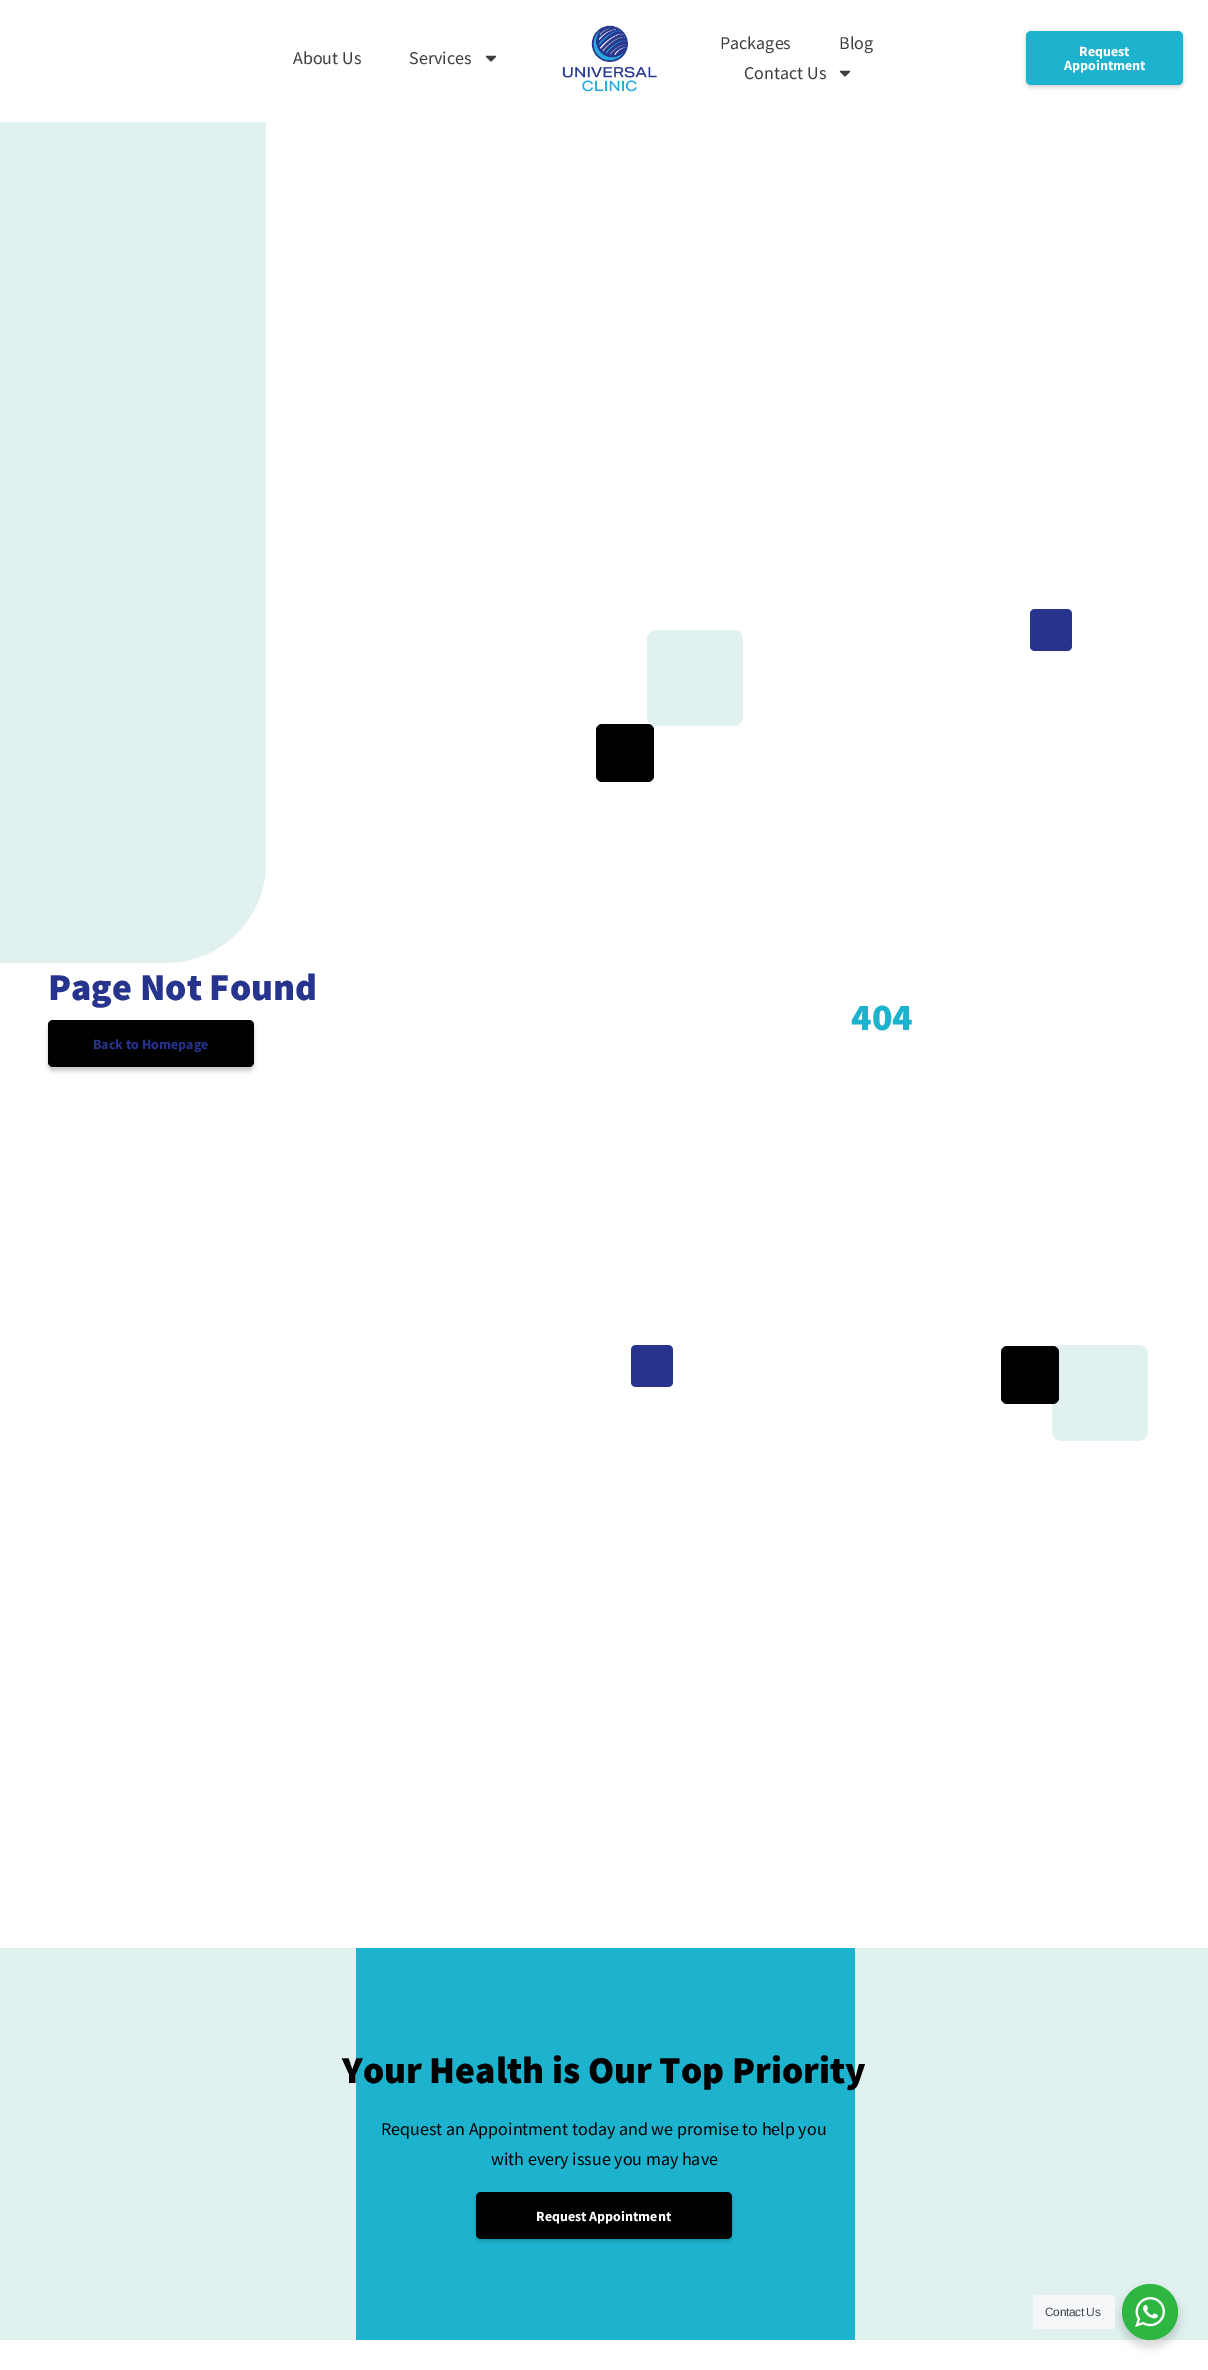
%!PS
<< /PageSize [1208 2370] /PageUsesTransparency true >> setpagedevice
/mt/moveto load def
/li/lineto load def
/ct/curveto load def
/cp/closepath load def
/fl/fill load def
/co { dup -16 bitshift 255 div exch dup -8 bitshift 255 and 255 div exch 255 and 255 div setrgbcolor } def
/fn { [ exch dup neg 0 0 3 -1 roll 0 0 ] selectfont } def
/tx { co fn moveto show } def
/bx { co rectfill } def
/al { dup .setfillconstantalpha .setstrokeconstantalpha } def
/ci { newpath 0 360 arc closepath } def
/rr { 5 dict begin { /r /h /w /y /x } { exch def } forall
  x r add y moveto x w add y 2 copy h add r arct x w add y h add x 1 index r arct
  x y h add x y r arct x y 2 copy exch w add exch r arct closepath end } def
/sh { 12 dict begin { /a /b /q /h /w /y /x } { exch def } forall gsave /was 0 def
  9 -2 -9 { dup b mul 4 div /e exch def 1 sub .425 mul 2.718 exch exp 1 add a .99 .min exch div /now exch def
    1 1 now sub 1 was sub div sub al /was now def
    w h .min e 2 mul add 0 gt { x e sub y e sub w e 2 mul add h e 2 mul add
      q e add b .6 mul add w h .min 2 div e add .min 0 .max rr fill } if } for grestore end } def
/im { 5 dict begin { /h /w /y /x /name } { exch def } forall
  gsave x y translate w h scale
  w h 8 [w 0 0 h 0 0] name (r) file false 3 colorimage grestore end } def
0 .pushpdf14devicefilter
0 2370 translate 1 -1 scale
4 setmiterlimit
0 0 1208 2370 16#FFFFFF bx
(media/1.raw) 485 55 12 7 im
(media/2.raw) 562 25 95 67 im
(media/1.raw) 839 70 12 7 im
16#000000 co
1026 33 157 54 5 2 .2 sh
16#1DB3CE co
1026 31 157 54 5 rr fl
16#E0F1EF co
0 122 mt 266 122 li 266 863 li 266 918 221 963 166 963 ct 0 963 li cp fl
733 630 mt 657 630 li 651 630 647 634 647 640 ct 647 716 li 647 722 651 726 657 726 ct 733 726 li 739 726 743 722 743 716 ct 743 640 li 743 634 739 630 733 630 ct cp fl
(media/3.raw) 1030 609 42 42 im
16#000000 co
648 724 mt 602 724 li 599 724 596 727 596 730 ct 596 776 li 596 779 599 782 602 782 ct 648 782 li 651 782 654 779 654 776 ct 654 730 li 654 727 651 724 648 724 ct cp fl
48 1024 206 47 5 2 .2 sh
48 1020 206 47 5 rr fl
(media/3.raw) 631 1345 42 42 im
16#E0F1EF co
1138 1345 mt 1062 1345 li 1056 1345 1052 1349 1052 1355 ct 1052 1431 li 1052 1437 1056 1441 1062 1441 ct 1138 1441 li 1144 1441 1148 1437 1148 1431 ct 1148 1355 li 1148 1349 1144 1345 1138 1345 ct cp fl
16#000000 co
1053 1346 mt 1007 1346 li 1004 1346 1001 1349 1001 1352 ct 1001 1398 li 1001 1401 1004 1404 1007 1404 ct 1053 1404 li 1056 1404 1059 1401 1059 1398 ct 1059 1352 li 1059 1349 1056 1346 1053 1346 ct cp fl
356 1948 499 392 16#1DB3CE bx
0 1948 356 392 16#E0F1EF bx
16#000000 co
476 2194 256 47 5 2 .2 sh
476 2192 256 47 5 rr fl
855 1948 353 392 16#E0F1EF bx
16#000000 co
1120 2288 60 60 30 4 .14 sh
16#F5F7F9 co
1033 2295 82 34 4 rr fl
16#2DB742 co
1150 2312 28 ci fl
(media/4.raw) 1135 2297 30 30 im
(About Us) 293 64 /SourceSansPro-Regular 18 16#3A3E41 tx
(Services) 409 64 /SourceSansPro-Regular 18 16#3A3E41 tx
(Packages) 720 49 /SourceSansPro-Regular 18 16#3A3E41 tx
(Blog) 839 49 /SourceSansPro-Regular 18 16#3A3E41 tx
(Contact Us) 744 79 /SourceSansPro-Regular 18 16#3A3E41 tx
(Request) 1079 56 /SourceSansPro-Bold 14 16#FFFFFF tx
(Appointment) 1064 70 /SourceSansPro-Bold 14 16#FFFFFF tx
(Page Not Found) 48 1000 /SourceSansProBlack-Black 38 16#27348E tx
(Back to Homepage) 93 1049 /SourceSansPro-Bold 14 16#27348E tx
(404) 851 1030 /SourceSansProBlack-Black 38 16#1DB3CE tx
(Your Health is Our Top Priority) 342 2083 /SourceSansProBlack-Black 38 16#000000 tx
(Request an Appointment today and we promise to help you) 381 2135 /SourceSansPro-Regular 18 16#000000 tx
(with every issue you may have) 491 2165 /SourceSansPro-Regular 18 16#000000 tx
(Request Appointment) 536 2221 /SourceSansPro-Bold 14 16#FFFFFF tx
/LiberationSans-Regular 12 fn
16#43474E co
1045 2316 mt -.4 0 (Contact Us) ashow
.poppdf14devicefilter showpage
